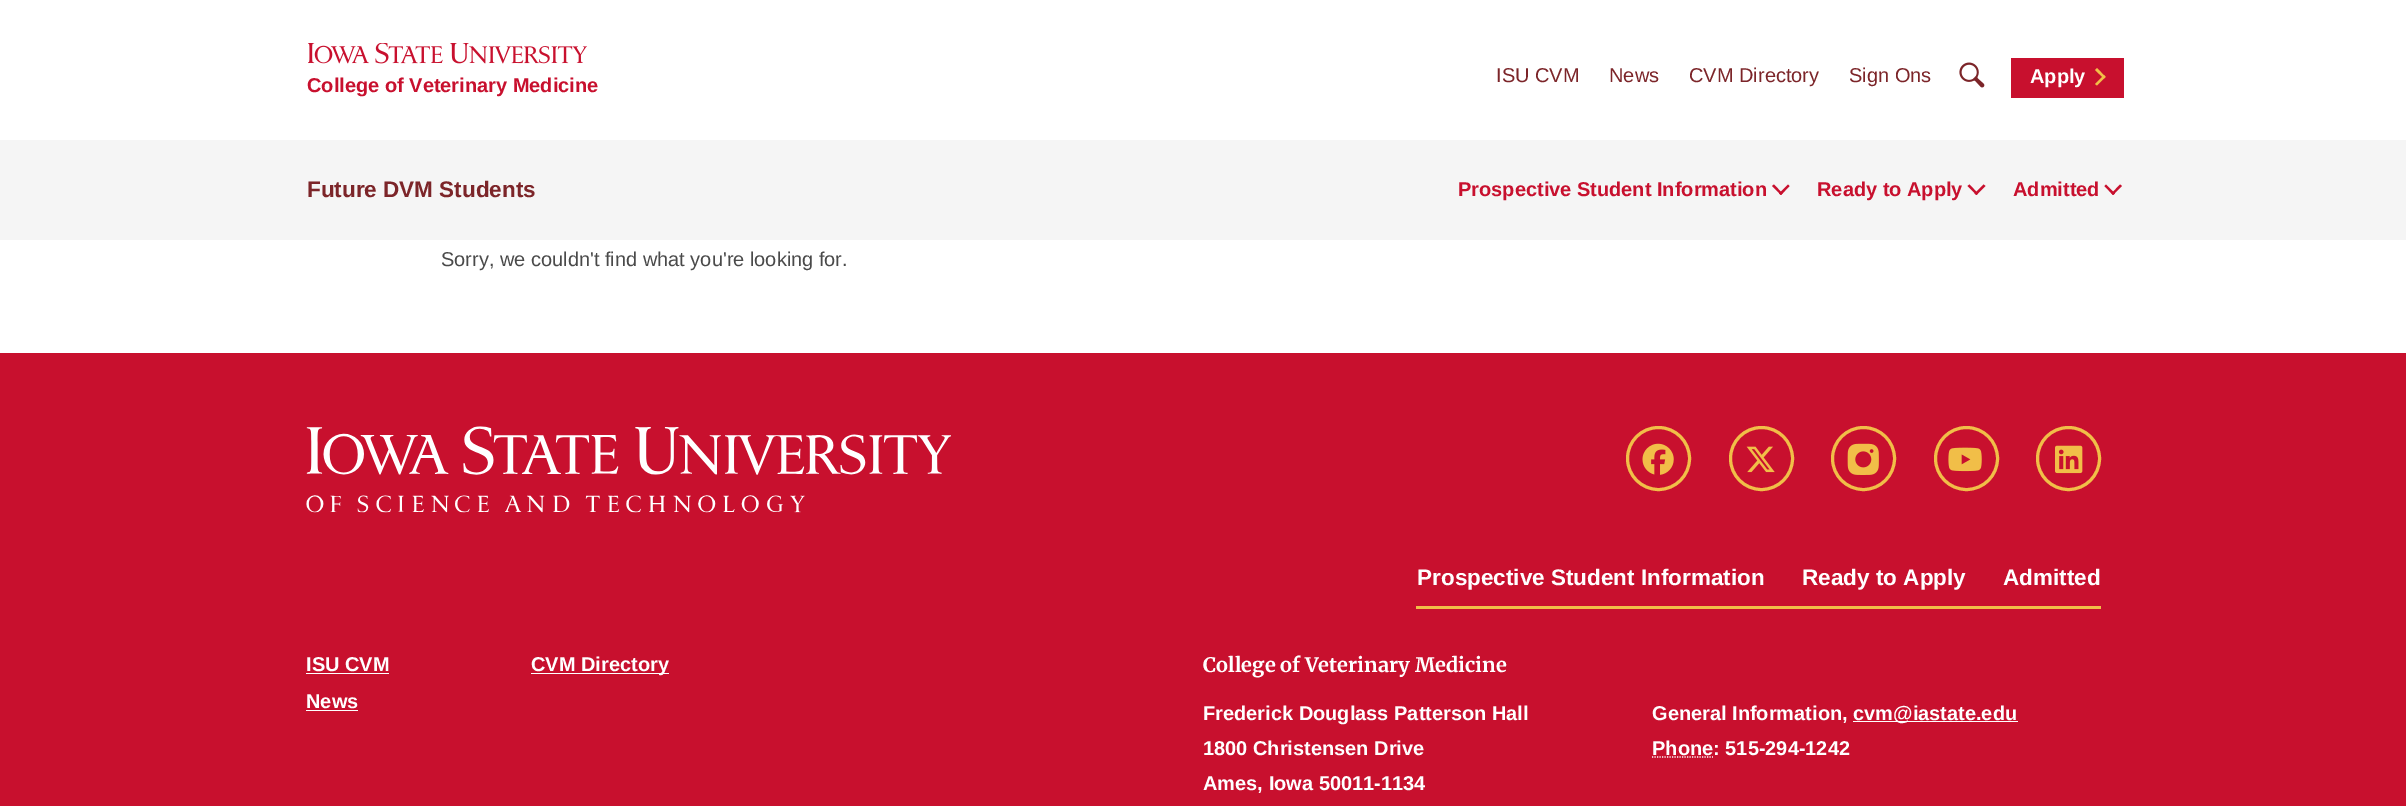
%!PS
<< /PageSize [2406 806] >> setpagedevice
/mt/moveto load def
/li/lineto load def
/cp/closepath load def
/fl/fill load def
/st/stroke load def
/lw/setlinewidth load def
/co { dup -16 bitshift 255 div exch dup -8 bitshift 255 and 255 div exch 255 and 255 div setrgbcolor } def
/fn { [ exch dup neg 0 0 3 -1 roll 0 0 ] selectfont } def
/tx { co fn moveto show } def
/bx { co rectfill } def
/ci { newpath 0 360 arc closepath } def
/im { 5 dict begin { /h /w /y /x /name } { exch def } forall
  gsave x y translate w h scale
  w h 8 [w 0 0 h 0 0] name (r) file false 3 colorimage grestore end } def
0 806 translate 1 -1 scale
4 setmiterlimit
0 0 2406 806 16#FFFFFF bx
(media/1.raw) 308 43 279 21 im
(media/2.raw) 1959 62 26 26 im
2011 58 113 40 16#C8102E bx
16#F1BE48 co
2095 70 mt 2097 68 li 2105.5 77 li 2104 78.5 li cp fl
2095 84 mt 2104 75 li 2105.5 77 li 2097 85.5 li cp fl
0 140 2406 100 16#F5F5F5 bx
16#C8102E co
1788 184.5 mt 1789.5 186 li 1781 195 li 1779 193.5 li cp fl
1774 184.5 mt 1782.5 193.5 li 1781 195 li 1772 186 li cp fl
1983.5 184.5 mt 1985.5 186 li 1976.5 195 li 1974.5 193.5 li cp fl
1969.5 184.5 mt 1978 193.5 li 1976.5 195 li 1967.5 186 li cp fl
2120 184.5 mt 2122 186 li 2113 195 li 2111.5 193.5 li cp fl
2106 184.5 mt 2115 193.5 li 2113 195 li 2104.5 186 li cp fl
0 353 2406 453 16#C8102E bx
(media/3.raw) 306 426 645 87 im
16#F1BE48 co
3 lw
1658.5 458.5 31 ci st
(media/4.raw) 1642 443 32 32 im
1761.5 458.5 31 ci st
(media/5.raw) 1746 446 29 27 im
1863.5 458.5 31 ci st
(media/6.raw) 1847 443 32 32 im
1966.5 458.5 31 ci st
(media/7.raw) 1948 447 34 25 im
2068.5 458.5 31 ci st
(media/8.raw) 2055 445 28 29 im
1416 606 685 3 16#F1BE48 bx
306 673 83 1 16#FFFFFF bx
531 673 138 1 16#FFFFFF bx
306 710 52 1 16#FFFFFF bx
1853 721 165 1 16#FFFFFF bx
1.2 lw
[1.25 1.25] 0 setdash
1652 757 mt 1713 757 li st
(College of Veterinary Medicine) 307 92 /LiberationSans-Bold 20 16#C8102E tx
(ISU CVM) 1496 82 /LiberationSans-Regular 20 16#7C2529 tx
(News) 1609 82 /LiberationSans-Regular 20 16#7C2529 tx
(CVM Directory) 1689 82 /LiberationSans-Regular 20 16#7C2529 tx
(Sign Ons) 1849 82 /LiberationSans-Regular 20 16#7C2529 tx
(Apply) 2030 83 /LiberationSans-Bold 20 16#FFFFFF tx
(Future DVM Students) 307 197 /LiberationSans-Bold 22.5 16#7C2529 tx
(Prospective Student Information) 1458 196 /LiberationSans-Bold 20 16#C8102E tx
(Ready to Apply) 1817 196 /LiberationSans-Bold 20 16#C8102E tx
(Admitted) 2013 196 /LiberationSans-Bold 20 16#C8102E tx
(Sorry, we couldn't find what you're looking for.) 441 266 /LiberationSans-Regular 20 16#4A4A4A tx
(Prospective Student Information) 1417 585 /LiberationSans-Bold 22.5 16#FFFFFF tx
(Ready to Apply) 1802 585 /LiberationSans-Bold 22.5 16#FFFFFF tx
(Admitted) 2003 585 /LiberationSans-Bold 22.5 16#FFFFFF tx
(ISU CVM) 306 671 /LiberationSans-Bold 20 16#FFFFFF tx
(CVM Directory) 531 671 /LiberationSans-Bold 20 16#FFFFFF tx
(News) 306 708 /LiberationSans-Bold 20 16#FFFFFF tx
(College of Veterinary Medicine) 1203 672 /Merriweather-Bold 20 16#FFFFFF tx
(Frederick Douglass Patterson Hall) 1203 720 /LiberationSans-Bold 20 16#FFFFFF tx
(1800 Christensen Drive) 1203 755 /LiberationSans-Bold 20 16#FFFFFF tx
(Ames, Iowa 50011-1134) 1203 790 /LiberationSans-Bold 20 16#FFFFFF tx
(General Information,) 1652 720 /LiberationSans-Bold 20 16#FFFFFF tx
(cvm@iastate.edu) 1853 720 /LiberationSans-Bold 20 16#FFFFFF tx
(Phone: 515-294-1242) 1652 755 /LiberationSans-Bold 20 16#FFFFFF tx
showpage
